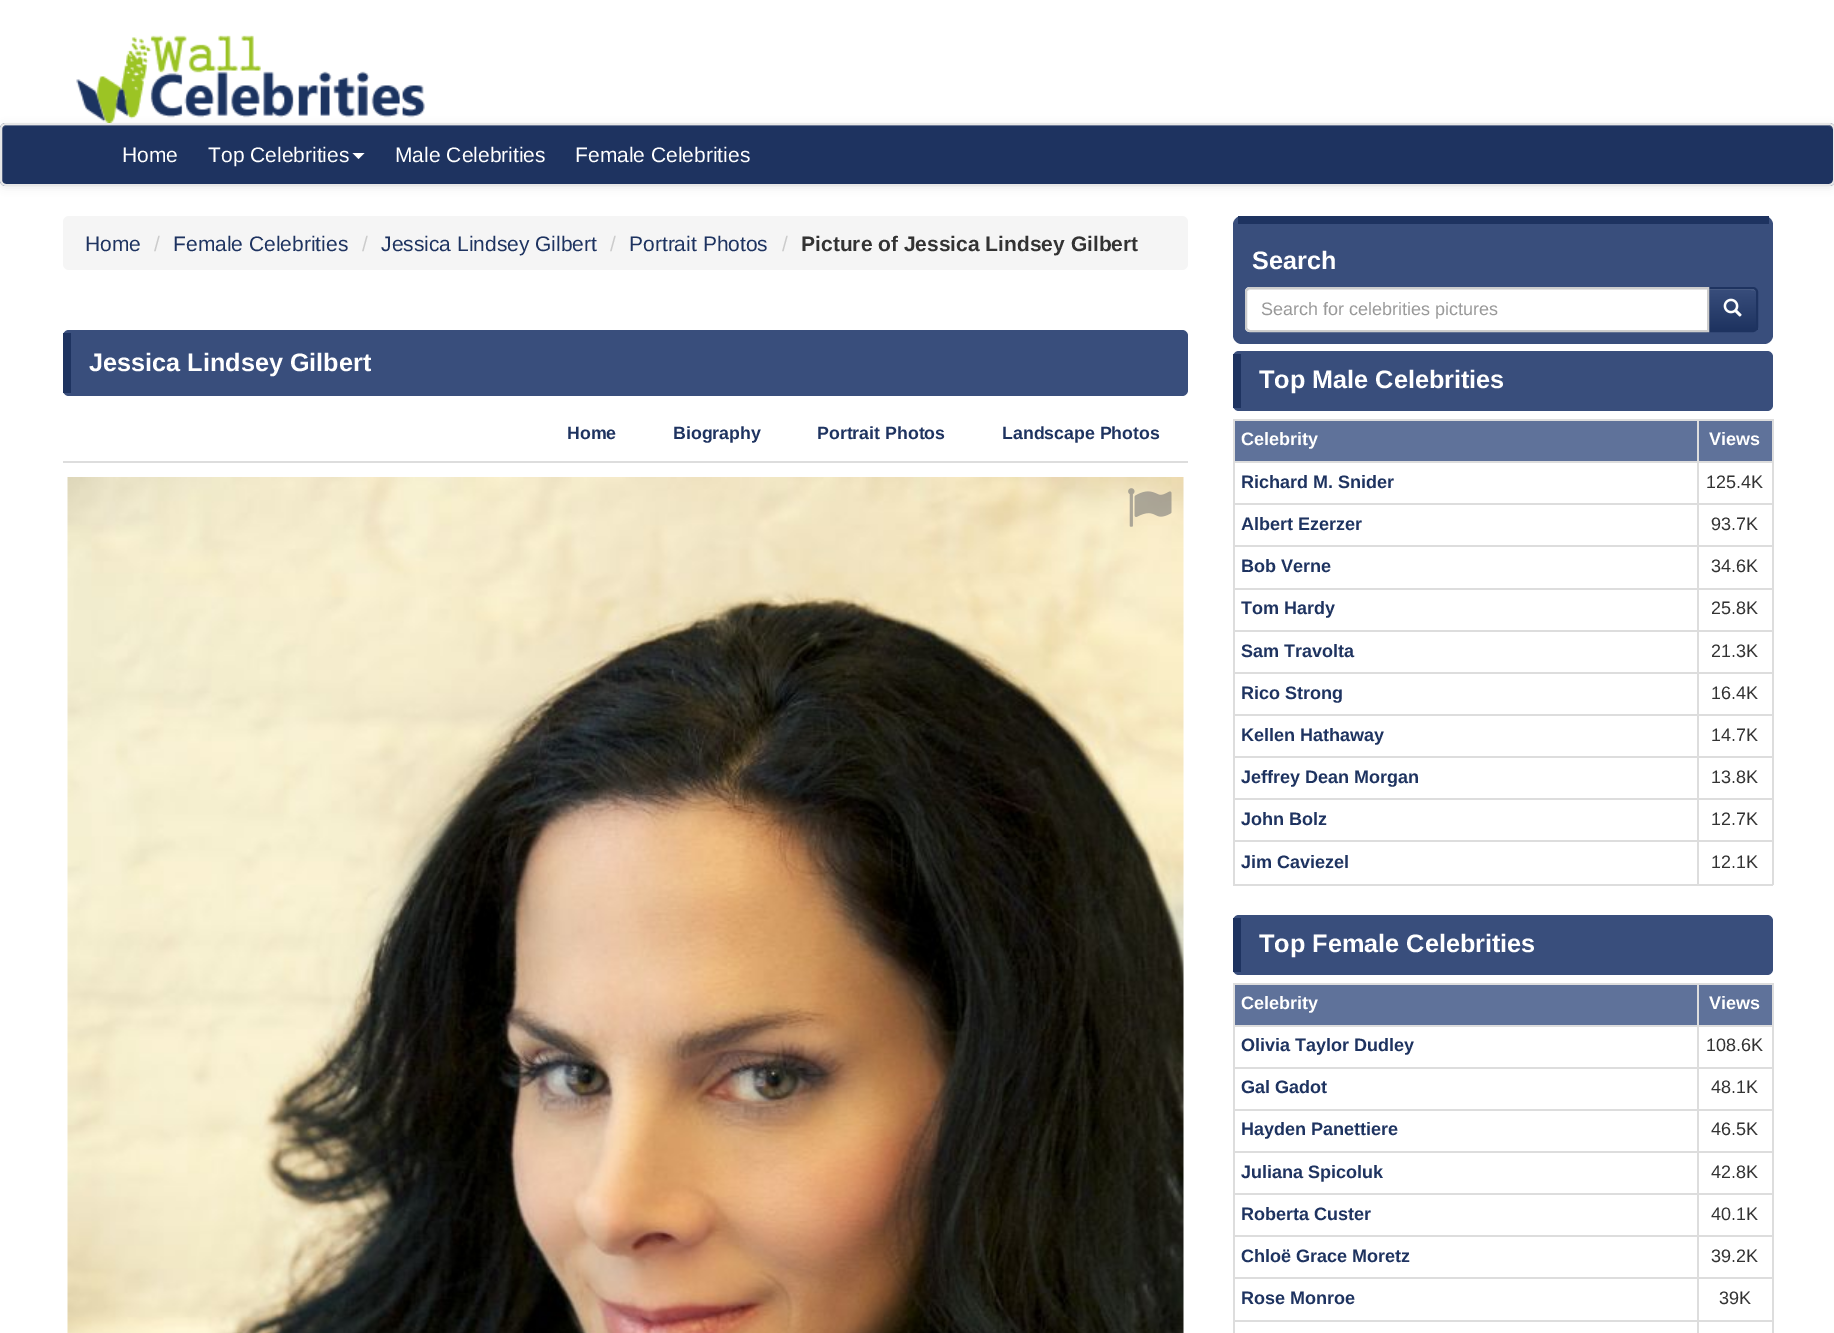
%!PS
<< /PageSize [1834 1333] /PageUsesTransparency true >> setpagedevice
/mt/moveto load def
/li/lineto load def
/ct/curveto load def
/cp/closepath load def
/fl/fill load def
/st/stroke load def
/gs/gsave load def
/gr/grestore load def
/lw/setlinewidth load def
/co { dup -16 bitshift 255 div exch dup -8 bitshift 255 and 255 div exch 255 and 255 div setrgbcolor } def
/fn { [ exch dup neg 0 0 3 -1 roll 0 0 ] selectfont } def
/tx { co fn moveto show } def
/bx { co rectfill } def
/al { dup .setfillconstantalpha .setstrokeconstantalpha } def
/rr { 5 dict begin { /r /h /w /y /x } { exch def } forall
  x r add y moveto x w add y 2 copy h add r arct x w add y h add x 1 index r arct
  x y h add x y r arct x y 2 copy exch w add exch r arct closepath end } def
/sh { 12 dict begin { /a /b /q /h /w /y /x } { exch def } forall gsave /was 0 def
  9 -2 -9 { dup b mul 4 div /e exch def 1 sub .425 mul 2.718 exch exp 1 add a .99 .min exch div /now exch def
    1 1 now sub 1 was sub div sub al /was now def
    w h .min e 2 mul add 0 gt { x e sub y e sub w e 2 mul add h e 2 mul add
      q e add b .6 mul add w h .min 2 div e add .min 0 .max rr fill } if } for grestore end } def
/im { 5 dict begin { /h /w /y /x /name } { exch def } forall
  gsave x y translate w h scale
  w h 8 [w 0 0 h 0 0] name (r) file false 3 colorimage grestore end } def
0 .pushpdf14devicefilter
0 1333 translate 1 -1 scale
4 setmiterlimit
0 0 1834 1333 16#FFFFFF bx
(media/1.raw) 76 35 349 88 im
16#000000 co
0 125 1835 63 6 4 .07 sh
16#1E3360 co
0 123 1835 63 6 rr fl
16#405278 co
6 126 mt 1828 126 li 1831 126 1833 128 1833 130 ct 1833 127 1831 125 1828 125 ct 7 125 li 4 125 2 127 2 130 ct 2 128 4 126 6 126 ct cp fl
16#E7E7E7 co
2 lw
1 124 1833 61 5 rr st
16#FFFFFF co
352.5 153 mt 364.5 153 li 358.5 159 li cp fl
16#F5F5F5 co
63 216 1125 54 6 rr fl
16#394E7C co
63 330 1125 66 6 rr fl
63 333 8 60 16#1E3360 bx
63 461 1125 2 16#DDDDDD bx
(media/2.raw) 67 477 1117 856 im
(media/3.raw) 1128 488 44 39 im
16#394E7C co
1233 216 540 128 9 rr fl
1238 216 531 8 16#1E3360 bx
gs
1707 287 mt 1753 287 li 1756 287 1758 289 1758 292 ct 1758 327 li 1758 330 1756 332 1753 332 ct 1707 332 li cp clip newpath
gs 1709 288 mt 1758 288 li 1758 330 li 1709 330 li cp clip newpath
<< /ShadingType 2 /ColorSpace /DeviceRGB /Coords [1733 288 1733 330] /Extend [true true] /Function << /FunctionType 2 /Domain [0 1] /C0 [.224 .306 .486] /C1 [.118 .2 .376] /N 1 >> >> shfill gr
gr
0.15 al
16#FFFFFF co
1709 288 mt 1709 290 li 1746 290 li 1759 290 1756 289 1756 304 ct 1756 329 li 1757 329 1757 328 1757 327 ct 1757 291 li 1757 289 1756 288 1754 288 ct cp fl
1 al
16#1E3360 co
1708 288 mt 1753 288 li 1755 288 1757 290 1757 292 ct 1757 327 li 1757 329 1755 331 1753 331 ct 1708 331 li cp st
16#FFFFFF co
1250 287 mt 1709 287 li 1709 332 li 1250 332 li 1247 332 1245 330 1245 327 ct 1245 292 li 1245 289 1247 287 1250 287 ct cp fl
16#ECECEC co
1250 290 mt 1707 290 li 1707 288 li 1250 288 li 1248 288 1247 289 1247 291 ct cp fl
16#CCCCCC co
1250 288 mt 1708 288 li 1708 331 li 1250 331 li 1248 331 1246 329 1246 327 ct 1246 292 li 1246 290 1248 288 1250 288 ct cp st
(media/4.raw) 1723 298 19 19 im
16#394E7C co
1233 351 540 60 6 rr fl
1233 354 8 54 16#1E3360 bx
1233 419 540 2 16#DDDDDD bx
1772 419 2 466 16#DDDDDD bx
1233 884 540 2 16#DDDDDD bx
1233 419 2 466 16#DDDDDD bx
1235 421 462 40 16#5F729A bx
1699 421 73 40 16#5F729A bx
1697 461 76 2 16#DDDDDD bx
1697 503 76 2 16#DDDDDD bx
1697 545 76 2 16#DDDDDD bx
1697 588 76 2 16#DDDDDD bx
1697 630 76 2 16#DDDDDD bx
1697 672 76 2 16#DDDDDD bx
1697 714 76 2 16#DDDDDD bx
1697 756 76 2 16#DDDDDD bx
1697 798 76 2 16#DDDDDD bx
1697 840 76 2 16#DDDDDD bx
1697 840 2 45 16#DDDDDD bx
1233 840 465 2 16#DDDDDD bx
1697 798 2 44 16#DDDDDD bx
1233 798 465 2 16#DDDDDD bx
1697 756 2 44 16#DDDDDD bx
1233 756 465 2 16#DDDDDD bx
1697 714 2 44 16#DDDDDD bx
1233 714 465 2 16#DDDDDD bx
1697 672 2 44 16#DDDDDD bx
1233 672 465 2 16#DDDDDD bx
1697 630 2 44 16#DDDDDD bx
1233 630 465 2 16#DDDDDD bx
1697 588 2 44 16#DDDDDD bx
1233 588 465 2 16#DDDDDD bx
1697 545 2 45 16#DDDDDD bx
1233 545 465 2 16#DDDDDD bx
1697 503 2 43 16#DDDDDD bx
1233 503 465 2 16#DDDDDD bx
1697 461 2 43 16#DDDDDD bx
1233 461 465 2 16#DDDDDD bx
1697 419 2 43 16#DDDDDD bx
16#394E7C co
1233 915 540 60 6 rr fl
1233 918 8 54 16#1E3360 bx
1233 983 540 2 16#DDDDDD bx
1772 983 2 350 16#DDDDDD bx
1233 983 2 350 16#DDDDDD bx
1235 985 462 40 16#5F729A bx
1699 985 73 40 16#5F729A bx
1697 1025 76 2 16#DDDDDD bx
1697 1067 76 2 16#DDDDDD bx
1697 1109 76 2 16#DDDDDD bx
1697 1151 76 2 16#DDDDDD bx
1697 1193 76 2 16#DDDDDD bx
1697 1235 76 2 16#DDDDDD bx
1697 1277 76 2 16#DDDDDD bx
1697 1320 76 2 16#DDDDDD bx
1697 1320 2 13 16#DDDDDD bx
1233 1320 465 2 16#DDDDDD bx
1697 1277 2 45 16#DDDDDD bx
1233 1277 465 2 16#DDDDDD bx
1697 1235 2 43 16#DDDDDD bx
1233 1235 465 2 16#DDDDDD bx
1697 1193 2 43 16#DDDDDD bx
1233 1193 465 2 16#DDDDDD bx
1697 1151 2 43 16#DDDDDD bx
1233 1151 465 2 16#DDDDDD bx
1697 1109 2 43 16#DDDDDD bx
1233 1109 465 2 16#DDDDDD bx
1697 1067 2 43 16#DDDDDD bx
1233 1067 465 2 16#DDDDDD bx
1697 1025 2 43 16#DDDDDD bx
1233 1025 465 2 16#DDDDDD bx
1697 983 2 43 16#DDDDDD bx
(Home) 122 162 /LiberationSans-Regular 21 16#FFFFFF tx
(Top Celebrities) 208 162 /LiberationSans-Regular 21 16#FFFFFF tx
(Male Celebrities) 395 162 /LiberationSans-Regular 21 16#FFFFFF tx
(Female Celebrities) 575 162 /LiberationSans-Regular 21 16#FFFFFF tx
(Home) 85 251 /LiberationSans-Regular 21 16#1E3360 tx
(/) 154 251 /LiberationSans-Regular 21 16#CCCCCC tx
(Female Celebrities) 173 251 /LiberationSans-Regular 21 16#1E3360 tx
(/) 362 251 /LiberationSans-Regular 21 16#CCCCCC tx
(Jessica Lindsey Gilbert) 381 251 /LiberationSans-Regular 21 16#1E3360 tx
(/) 610 251 /LiberationSans-Regular 21 16#CCCCCC tx
(Portrait Photos) 629 251 /LiberationSans-Regular 21 16#1E3360 tx
(/) 782 251 /LiberationSans-Regular 21 16#CCCCCC tx
(Picture of Jessica Lindsey Gilbert) 801 251 /LiberationSans-Bold 21 16#333333 tx
(Jessica Lindsey Gilbert) 89 371 /LiberationSans-Bold 25.25 16#FFFFFF tx
(Home) 567 439 /LiberationSans-Bold 17.75 16#1E3360 tx
(Biography) 673 439 /LiberationSans-Bold 17.75 16#1E3360 tx
(Portrait Photos) 817 439 /LiberationSans-Bold 17.75 16#1E3360 tx
(Landscape Photos) 1002 439 /LiberationSans-Bold 17.75 16#1E3360 tx
(Search) 1252 269 /LiberationSans-Bold 25.25 16#FFFFFF tx
(Search for celebrities pictures) 1261 315 /LiberationSans-Regular 18 16#999999 tx
(Top Male Celebrities) 1259 388 /LiberationSans-Bold 25.25 16#FFFFFF tx
(Celebrity) 1241 445 /LiberationSans-Bold 18 16#FFFFFF tx
(Views) 1709 445 /LiberationSans-Bold 18 16#FFFFFF tx
(Richard M. Snider) 1241 488 /LiberationSans-Bold 18 16#1E3360 tx
(125.4K) 1706 488 /LiberationSans-Regular 18 16#333333 tx
(Albert Ezerzer) 1241 530 /LiberationSans-Bold 18 16#1E3360 tx
(93.7K) 1711 530 /LiberationSans-Regular 18 16#333333 tx
(Bob Verne) 1241 572 /LiberationSans-Bold 18 16#1E3360 tx
(34.6K) 1711 572 /LiberationSans-Regular 18 16#333333 tx
(Tom Hardy) 1241 614 /LiberationSans-Bold 18 16#1E3360 tx
(25.8K) 1711 614 /LiberationSans-Regular 18 16#333333 tx
(Sam Travolta) 1241 657 /LiberationSans-Bold 18 16#1E3360 tx
(21.3K) 1711 657 /LiberationSans-Regular 18 16#333333 tx
(Rico Strong) 1241 699 /LiberationSans-Bold 18 16#1E3360 tx
(16.4K) 1711 699 /LiberationSans-Regular 18 16#333333 tx
(Kellen Hathaway) 1241 741 /LiberationSans-Bold 18 16#1E3360 tx
(14.7K) 1711 741 /LiberationSans-Regular 18 16#333333 tx
(Jeffrey Dean Morgan) 1241 783 /LiberationSans-Bold 18 16#1E3360 tx
(13.8K) 1711 783 /LiberationSans-Regular 18 16#333333 tx
(John Bolz) 1241 825 /LiberationSans-Bold 18 16#1E3360 tx
(12.7K) 1711 825 /LiberationSans-Regular 18 16#333333 tx
(Jim Caviezel) 1241 868 /LiberationSans-Bold 18 16#1E3360 tx
(12.1K) 1711 868 /LiberationSans-Regular 18 16#333333 tx
(Top Female Celebrities) 1259 952 /LiberationSans-Bold 25.25 16#FFFFFF tx
(Celebrity) 1241 1009 /LiberationSans-Bold 18 16#FFFFFF tx
(Views) 1709 1009 /LiberationSans-Bold 18 16#FFFFFF tx
(Olivia Taylor Dudley) 1241 1051 /LiberationSans-Bold 18 16#1E3360 tx
(108.6K) 1706 1051 /LiberationSans-Regular 18 16#333333 tx
(Gal Gadot) 1241 1093 /LiberationSans-Bold 18 16#1E3360 tx
(48.1K) 1711 1093 /LiberationSans-Regular 18 16#333333 tx
(Hayden Panettiere) 1241 1135 /LiberationSans-Bold 18 16#1E3360 tx
(46.5K) 1711 1135 /LiberationSans-Regular 18 16#333333 tx
(Juliana Spicoluk) 1241 1178 /LiberationSans-Bold 18 16#1E3360 tx
(42.8K) 1711 1178 /LiberationSans-Regular 18 16#333333 tx
(Roberta Custer) 1241 1220 /LiberationSans-Bold 18 16#1E3360 tx
(40.1K) 1711 1220 /LiberationSans-Regular 18 16#333333 tx
(Chloë Grace Moretz) 1241 1262 /LiberationSans-Bold 18 16#1E3360 tx
(39.2K) 1711 1262 /LiberationSans-Regular 18 16#333333 tx
(Rose Monroe) 1241 1304 /LiberationSans-Bold 18 16#1E3360 tx
(39K) 1719 1304 /LiberationSans-Regular 18 16#333333 tx
.poppdf14devicefilter showpage
